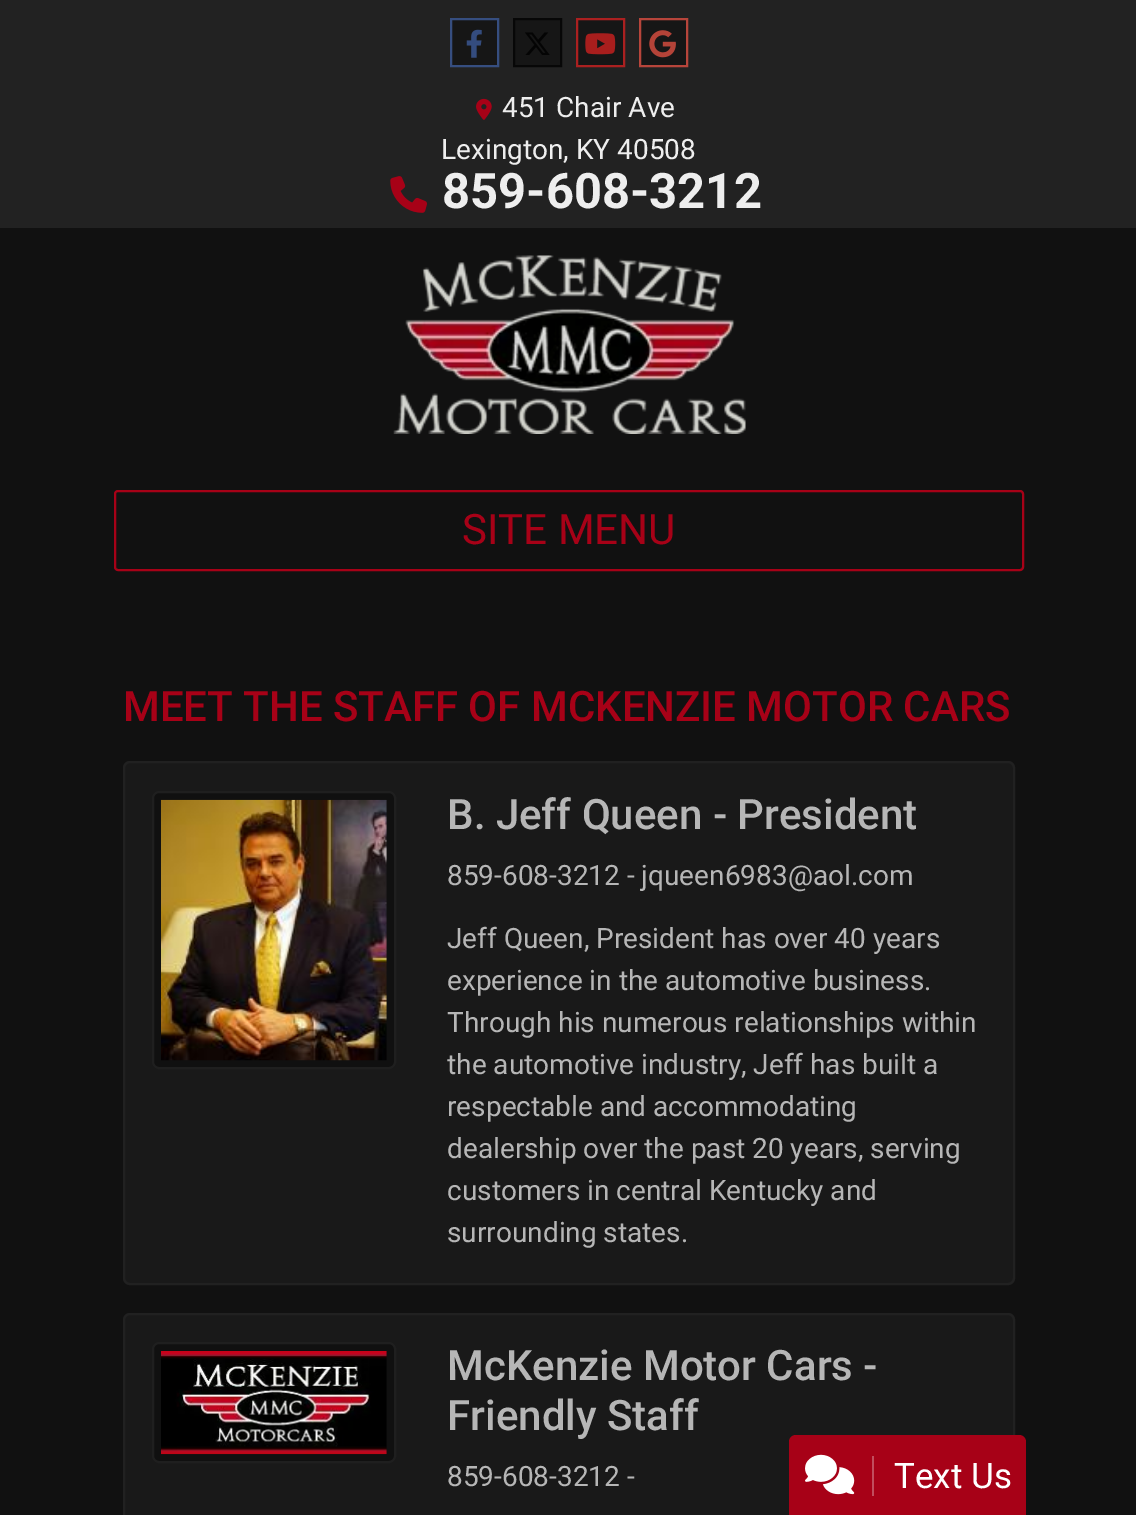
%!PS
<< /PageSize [1136 1515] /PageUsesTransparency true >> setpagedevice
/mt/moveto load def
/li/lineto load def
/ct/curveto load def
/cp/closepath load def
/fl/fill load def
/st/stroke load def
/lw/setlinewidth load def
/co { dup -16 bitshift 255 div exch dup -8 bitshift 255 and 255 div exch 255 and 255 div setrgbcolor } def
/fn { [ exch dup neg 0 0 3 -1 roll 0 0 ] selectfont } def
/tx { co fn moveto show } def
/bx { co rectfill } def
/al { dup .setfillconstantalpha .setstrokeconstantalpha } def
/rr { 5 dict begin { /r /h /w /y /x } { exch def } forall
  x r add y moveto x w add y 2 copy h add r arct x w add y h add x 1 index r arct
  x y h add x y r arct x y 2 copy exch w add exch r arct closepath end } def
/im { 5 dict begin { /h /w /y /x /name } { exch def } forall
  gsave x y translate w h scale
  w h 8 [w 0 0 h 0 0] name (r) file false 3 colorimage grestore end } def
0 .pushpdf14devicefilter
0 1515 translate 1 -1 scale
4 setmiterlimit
0 0 1136 1515 16#111111 bx
0 0 1136 228 16#222222 bx
0.85 al
16#141414 co
451 19 mt 498 19 li 498 66 li 451 66 li cp fl
1 al
16#364E80 co
2 lw
451 19 mt 498 19 li 498 66 li 451 66 li cp st
(media/1.raw) 466 29 16 29 im
0.85 al
16#141414 co
514 19 mt 561 19 li 561 66 li 514 66 li cp fl
1 al
16#070707 co
514 19 mt 561 19 li 561 66 li 514 66 li cp st
(media/2.raw) 525 32 25 23 im
0.85 al
16#141414 co
577 19 mt 624 19 li 624 66 li 577 66 li cp fl
1 al
16#AB2020 co
577 19 mt 624 19 li 624 66 li 577 66 li cp st
(media/3.raw) 585 33 31 22 im
0.85 al
16#141414 co
640 19 mt 687 19 li 687 66 li 640 66 li cp fl
1 al
16#B7453B co
640 19 mt 687 19 li 687 66 li 640 66 li cp st
(media/4.raw) 649 30 27 28 im
(media/5.raw) 476 98 16 22 im
(media/6.raw) 390 176 37 37 im
(media/7.raw) 393 255 353 179 im
16#A70117 co
115 491 908 79 3 rr st
0.6 al
16#1E1E1E co
123 761 892 524 7 rr fl
0.8 al
16#232323 co
124 762 890 522 6 rr st
1 al
16#101010 co
152 791 244 278 7 rr fl
0.8 al
16#232323 co
153 792 242 276 6 rr st
1 al
(media/8.raw) 161 799 226 262 im
16#191919 co
123 1313 892 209 7 rr fl
0.8 al
16#232323 co
124 1314 890 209 6 rr st
1 al
16#101010 co
152 1342 244 121 7 rr fl
0.8 al
16#232323 co
153 1343 242 119 6 rr st
1 al
(media/9.raw) 161 1351 226 104 im
16#A70117 co
796 1435 mt 1019 1435 li 1023 1435 1026 1438 1026 1442 ct 1026 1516 li 789 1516 li 789 1442 li 789 1438 792 1435 796 1435 ct cp fl
872 1456 2 40 16#C14D5D bx
(media/10.raw) 805 1454 50 41 im
(451 Chair Ave) 502 117 /Roboto-Regular 28 16#EEEEEE tx
(Lexington, KY 40508) 441 159 /Roboto-Regular 28 16#EEEEEE tx
(859-608-3212) 442 208 /Roboto-Bold 49 16#EEEEEE tx
(SITE MENU) 462 544 /Roboto-Regular 42 16#A70117 tx
(MEET THE STAFF OF MCKENZIE MOTOR CARS) 123 721 /Roboto-Medium 42 16#A70117 tx
(B. Jeff Queen - President) 447 829 /Roboto-Medium 42 16#B6B6B6 tx
(859-608-3212 - jqueen6983@aol.com) 447 885 /Roboto-Regular 28 16#B6B6B6 tx
(Jeff Queen, President has over 40 years) 447 948 /Roboto-Regular 28 16#B6B6B6 tx
(experience in the automotive business.) 447 990 /Roboto-Regular 28 16#B6B6B6 tx
(Through his numerous relationships within) 447 1032 /Roboto-Regular 28 16#B6B6B6 tx
(the automotive industry, Jeff has built a) 447 1074 /Roboto-Regular 28 16#B6B6B6 tx
(respectable and accommodating) 447 1116 /Roboto-Regular 28 16#B6B6B6 tx
(dealership over the past 20 years, serving) 447 1158 /Roboto-Regular 28 16#B6B6B6 tx
(customers in central Kentucky and) 447 1200 /Roboto-Regular 28 16#B6B6B6 tx
(surrounding states.) 447 1242 /Roboto-Regular 28 16#B6B6B6 tx
(McKenzie Motor Cars -) 447 1380 /Roboto-Medium 42 16#B6B6B6 tx
(Friendly Staff) 447 1430 /Roboto-Medium 42 16#B6B6B6 tx
(859-608-3212 -) 447 1486 /Roboto-Regular 28 16#B6B6B6 tx
(Text Us) 894 1488 /Roboto-Regular 35 16#FFFFFF tx
.poppdf14devicefilter showpage
